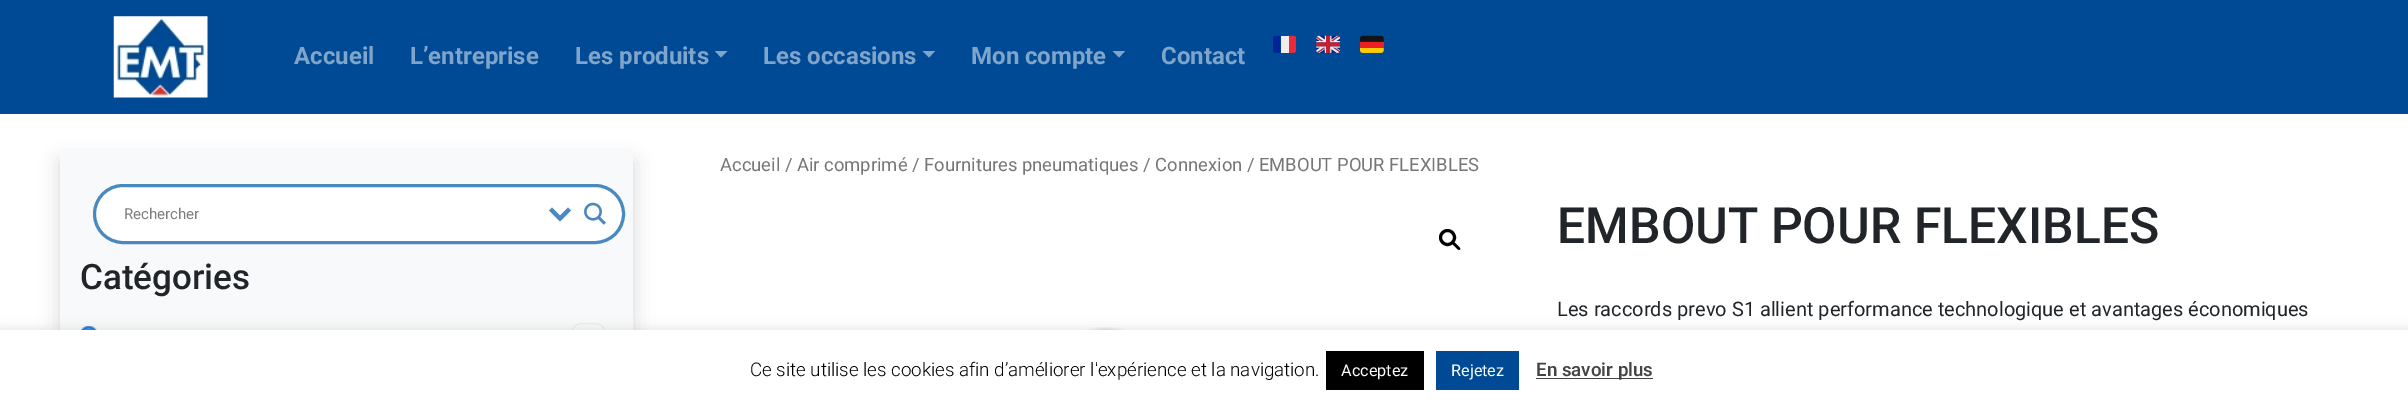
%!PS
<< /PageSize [2408 411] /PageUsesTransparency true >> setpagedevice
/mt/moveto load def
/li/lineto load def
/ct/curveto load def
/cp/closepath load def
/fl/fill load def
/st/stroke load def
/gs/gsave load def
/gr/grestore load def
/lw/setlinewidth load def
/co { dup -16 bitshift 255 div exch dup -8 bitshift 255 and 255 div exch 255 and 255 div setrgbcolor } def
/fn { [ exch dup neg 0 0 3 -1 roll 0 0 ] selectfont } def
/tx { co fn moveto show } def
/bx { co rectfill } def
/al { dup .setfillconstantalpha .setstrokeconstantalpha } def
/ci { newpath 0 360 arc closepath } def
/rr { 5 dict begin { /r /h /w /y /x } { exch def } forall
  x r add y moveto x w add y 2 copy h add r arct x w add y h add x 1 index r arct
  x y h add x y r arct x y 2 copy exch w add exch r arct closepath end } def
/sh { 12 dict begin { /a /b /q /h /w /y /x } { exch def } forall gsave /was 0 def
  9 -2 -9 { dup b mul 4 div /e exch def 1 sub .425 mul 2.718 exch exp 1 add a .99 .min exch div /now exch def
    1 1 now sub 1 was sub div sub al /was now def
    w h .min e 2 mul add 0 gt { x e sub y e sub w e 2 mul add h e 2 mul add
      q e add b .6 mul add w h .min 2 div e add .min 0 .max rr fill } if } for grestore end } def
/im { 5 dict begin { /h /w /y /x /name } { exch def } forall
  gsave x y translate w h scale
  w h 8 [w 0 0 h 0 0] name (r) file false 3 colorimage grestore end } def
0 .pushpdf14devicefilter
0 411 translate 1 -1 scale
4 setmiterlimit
0 0 2408 411 16#FFFFFF bx
0 0 2408 114 16#004A95 bx
(media/1.raw) 113 16 95 82 im
(media/2.raw) 1273 35 23 18 im
(media/3.raw) 1316 35 24 18 im
(media/4.raw) 1360 35 24 18 im
16#80A5CA co
715 51 mt 727.5 51 li 721 57.5 li cp fl
922.5 51 mt 935 51 li 929 57.5 li cp fl
1112.5 51 mt 1125 51 li 1119 57.5 li cp fl
16#000000 co
60 161 573 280 0 10 .15 sh
60 151 573 179 16#F8F9FA bx
16#FFFFFF co
94.5 185.5 529 57 28.5 rr gs fl gr
16#4A89BF co
3 lw
st
568 207.5 mt 571 210.5 li 560 221.5 li 549 210.5 li 552 207.5 li 560 215.5 li cp fl
(media/5.raw) 584 202 22 23 im
(media/6.raw) 81 326 16 4 im
16#EAEAEA co
1 lw
571.5 323.5 34 20 10 rr st
16#000000 co
3 lw
1447.5 237.5 7 ci st
1452.5 242.5 mt 1454 241 1456.5 244.5 1457 245 ct 1458 246 1461 248 1460 249.5 ct 1458.5 251 1456 247.5 1455.5 247 ct 1454.5 246 1451.5 244 1452.5 242.5 ct cp fl
(media/7.raw) 1070 327 70 3 im
16#ACABAB co
0 329 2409 81 0 6 .3 sh
0 330 2408 81 16#FFFFFF bx
1326 351 98 39 16#000000 bx
1436 351 83 39 16#004A95 bx
1536 378 117 1 16#444444 bx
(Accueil) 294 64 /Roboto-Bold 24 16#80A5CA tx
(L’entreprise) 410 64 /Roboto-Bold 24 16#80A5CA tx
(Les produits) 575 64 /Roboto-Bold 24 16#80A5CA tx
(Les occasions) 763 64 /Roboto-Bold 24 16#80A5CA tx
(Mon compte) 971 64 /Roboto-Bold 24 16#80A5CA tx
(Contact) 1161 64 /Roboto-Bold 24 16#80A5CA tx
(Rechercher) 124 219 /Roboto-Regular 15 16#7D7D7D tx
(Catégories) 80 289 /Roboto-Medium 35 16#212529 tx
(Accueil / Air comprimé / Fournitures pneumatiques / Connexion / EMBOUT POUR FLEXIBLES) 720 171 /Roboto-Regular 18.4 16#767676 tx
(EMBOUT POUR FLEXIBLES) 1557 243 /Roboto-Medium 50 16#212529 tx
(Les raccords prevo S1 allient performance technologique et avantages économiques) 1557 316 /Roboto-Regular 20 16#212529 tx
(Ce site utilise les cookies afin d’améliorer l'expérience et la navigation.) 750 376 /Roboto-Light 18.75 16#000000 tx
(Acceptez) 1341 376 /Roboto-Regular 16.25 16#FFFFFF tx
(Rejetez) 1451 376 /Roboto-Regular 16.25 16#FFFFFF tx
(En savoir plus) 1536 376 /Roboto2-Medium 18.75 16#444444 tx
.poppdf14devicefilter showpage
